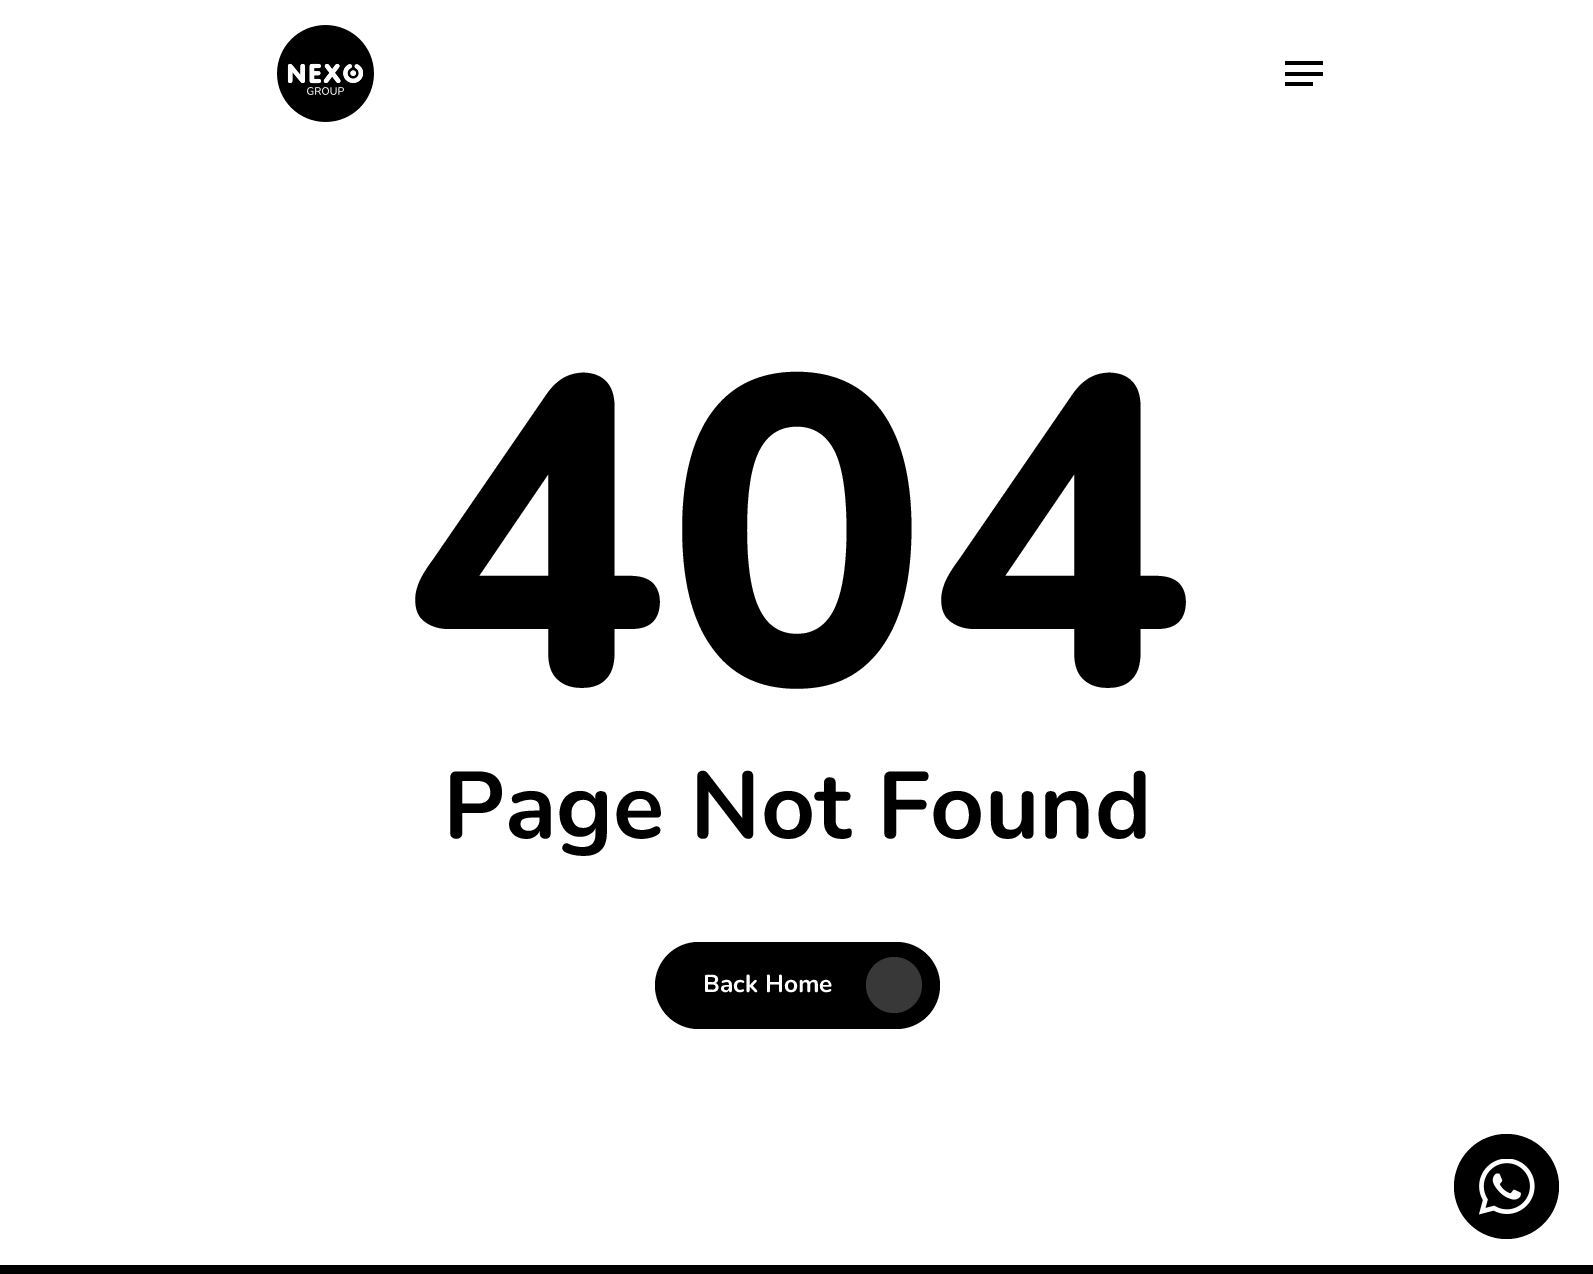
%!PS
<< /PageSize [1593 1274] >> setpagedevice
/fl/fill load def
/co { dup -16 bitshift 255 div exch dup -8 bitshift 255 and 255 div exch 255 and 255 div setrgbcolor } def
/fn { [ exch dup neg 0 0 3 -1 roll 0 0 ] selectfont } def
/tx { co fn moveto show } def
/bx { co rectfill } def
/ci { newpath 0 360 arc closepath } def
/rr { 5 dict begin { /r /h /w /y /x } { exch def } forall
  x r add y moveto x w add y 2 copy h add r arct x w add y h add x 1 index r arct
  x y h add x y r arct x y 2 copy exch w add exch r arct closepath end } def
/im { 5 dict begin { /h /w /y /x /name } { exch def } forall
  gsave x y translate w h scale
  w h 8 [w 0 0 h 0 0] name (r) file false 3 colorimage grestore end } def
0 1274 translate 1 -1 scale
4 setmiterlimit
0 0 1593 1274 16#FFFFFF bx
(media/1.raw) 277 25 97 97 im
1285 61 38 4 16#000000 bx
1285 82 28 4 16#000000 bx
1285 72 38 4 16#000000 bx
655 942 285 87 43.5 rr fl
16#383838 co
894 985 28 ci fl
0 1265 1593 9 16#000000 bx
1506.5 1186.5 52.5 ci fl
(media/2.raw) 1479 1159 56 56 im
(404) 403 684 /Nunito-ExtraBold 438 16#000000 tx
(Page Not Found) 443 838 /Nunito-Bold 94.5 16#000000 tx
(Back Home) 703 992 /Nunito-Bold 24.5 16#FFFFFF tx
showpage
